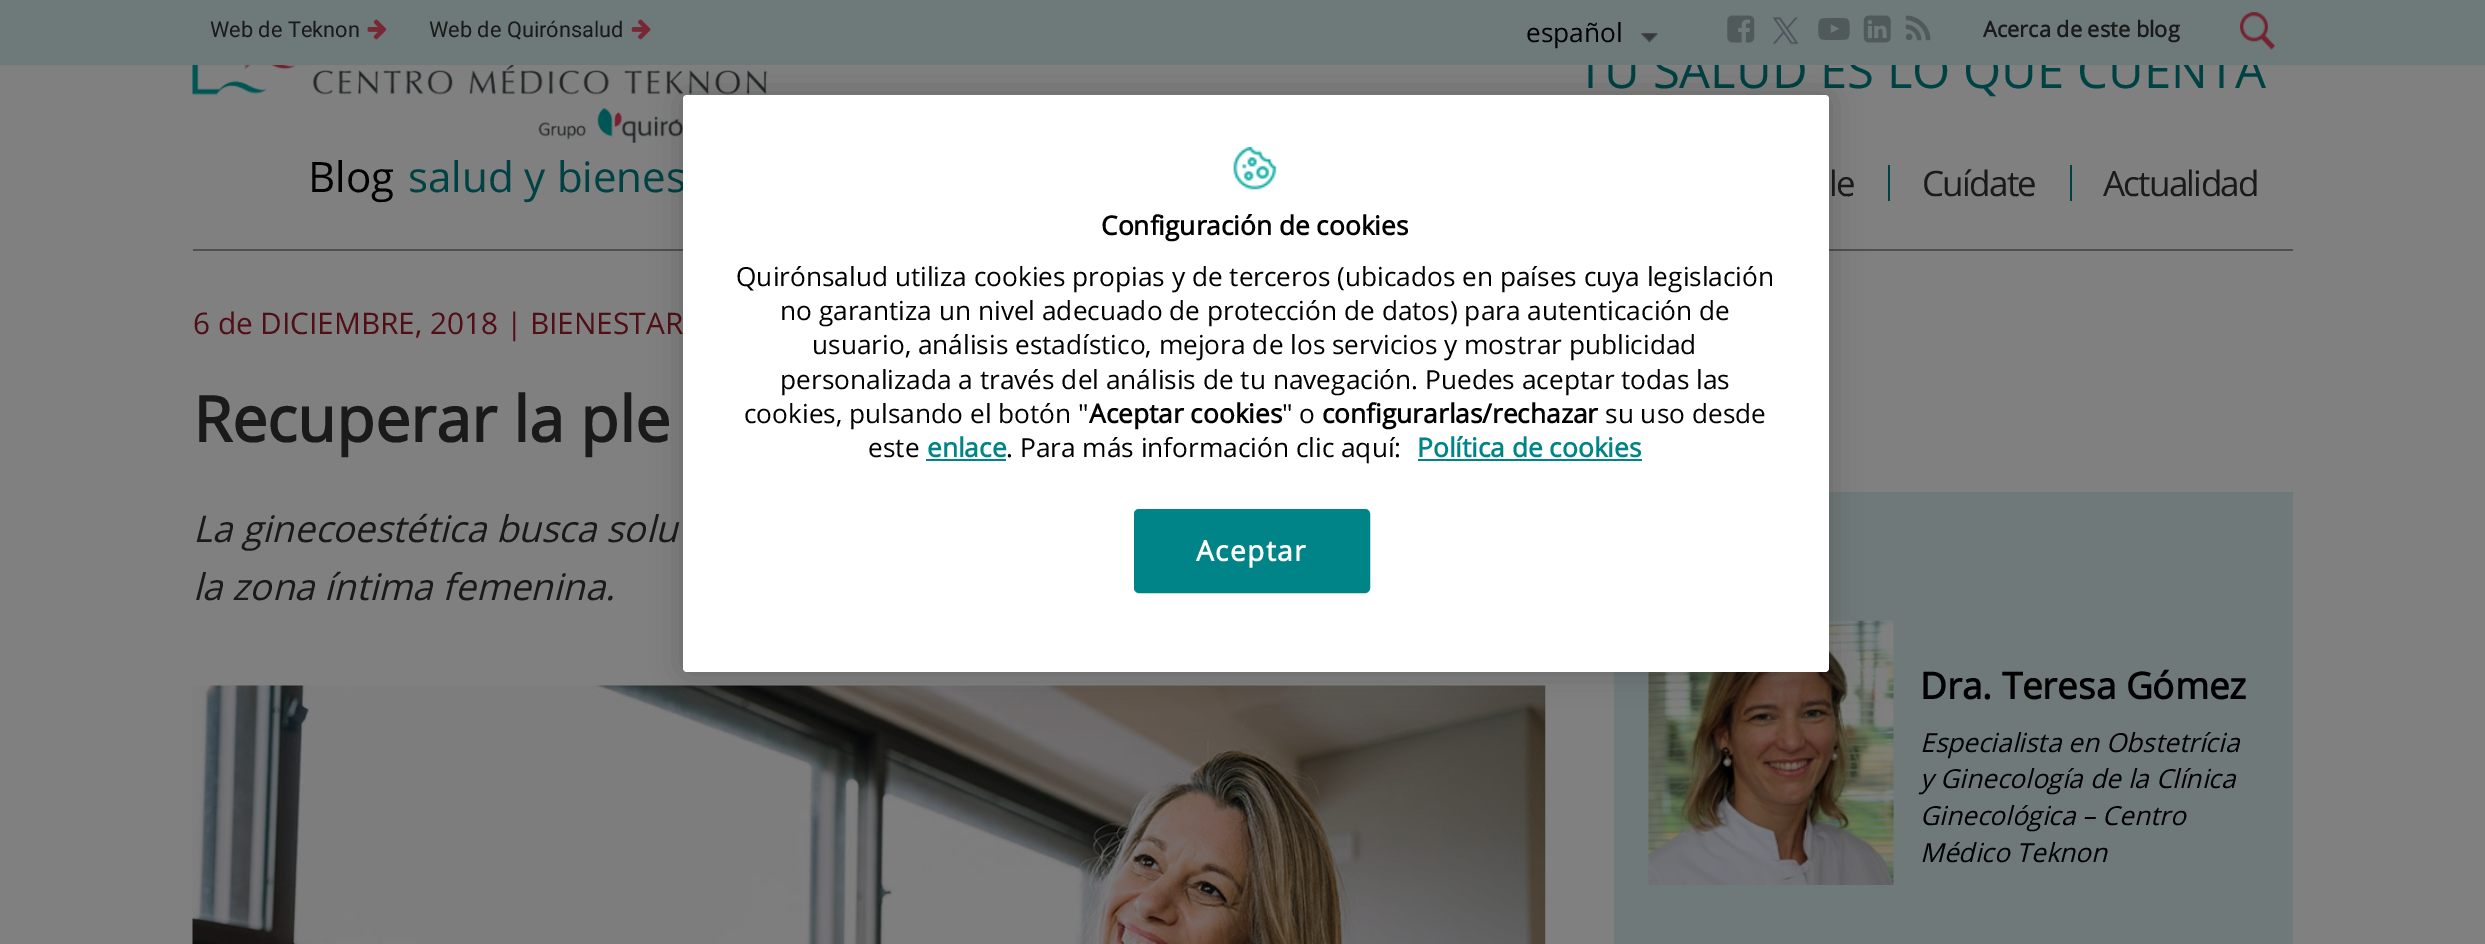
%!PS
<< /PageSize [2485 944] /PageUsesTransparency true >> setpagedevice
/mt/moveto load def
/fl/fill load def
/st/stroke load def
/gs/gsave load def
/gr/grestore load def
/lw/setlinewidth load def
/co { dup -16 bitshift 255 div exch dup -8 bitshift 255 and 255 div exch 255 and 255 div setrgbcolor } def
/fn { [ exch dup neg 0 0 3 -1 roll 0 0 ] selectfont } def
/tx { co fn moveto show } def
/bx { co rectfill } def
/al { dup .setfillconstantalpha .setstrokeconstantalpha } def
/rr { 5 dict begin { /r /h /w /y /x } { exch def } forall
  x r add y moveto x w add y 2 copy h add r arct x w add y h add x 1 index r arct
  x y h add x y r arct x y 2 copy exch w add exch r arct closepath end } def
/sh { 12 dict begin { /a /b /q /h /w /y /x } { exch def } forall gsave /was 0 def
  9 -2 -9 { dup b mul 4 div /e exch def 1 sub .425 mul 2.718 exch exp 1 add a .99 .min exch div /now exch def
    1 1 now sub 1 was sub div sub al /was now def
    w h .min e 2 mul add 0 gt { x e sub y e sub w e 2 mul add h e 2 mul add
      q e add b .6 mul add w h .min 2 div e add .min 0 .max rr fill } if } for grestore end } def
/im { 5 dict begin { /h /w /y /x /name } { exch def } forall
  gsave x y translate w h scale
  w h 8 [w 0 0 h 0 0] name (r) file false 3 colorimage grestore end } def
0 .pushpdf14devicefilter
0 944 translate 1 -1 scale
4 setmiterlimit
0 0 2485 944 16#808080 bx
193 249 2100 2 16#4E4F51 bx
(media/10.raw) 192 65 576 78 im
1888 165 2 36 16#004244 bx
2070 165 2 36 16#004244 bx
(media/11.raw) 192 685 1354 259 im
1614 492 679 452 16#707979 bx
(media/12.raw) 1648 620 246 265 im
(Blog) 308 192 /OpenSans-Regular 42 16#000000 tx
(salud y bienes) 408 192 /OpenSans-Regular 42 16#004244 tx
(TU SALUD ES LO QUE CUENTA) 1577 88 /OpenSans-Regular 49 16#004244 tx
0 0 2485 65 16#6E7A7A bx
(español) 1526 42 /OpenSans-Regular 26.25 16#000000 tx
(media/3.raw) 1641 33 17 10 im
(media/9.raw) 2240 12 35 39 im
(Acerca de este blog) 1983 37 /OpenSans-Bold 21.75 16#1A1A1A tx
(media/8.raw) 1905 15 26 26 im
(media/7.raw) 1863 15 28 28 im
(media/6.raw) 1818 17 32 24 im
(media/5.raw) 1772 17 27 28 im
(media/4.raw) 1727 15 28 28 im
(media/2.raw) 631 19 20 21 im
(Web de Quirónsalud) 429 37 /Roboto-Regular 21.75 16#1A1A1A tx
(media/1.raw) 367 19 20 21 im
(Web de Teknon) 210 37 /Roboto-Regular 21.75 16#1A1A1A tx
/OpenSans-Regular 35 fn
1829 196 mt -1.75 0 (le) ashow
1922 196 mt -1.75 0 (Cuídate) ashow
2103 196 mt -1.75 0 (Actualidad) ashow
(6 de DICIEMBRE, 2018 | BIENESTAR) 193 334 /OpenSans-Regular 29.75 16#500F17 tx
(Recuperar la ple) 193 442 /OpenSans-Bold 63 16#1A1A1A tx
(La ginecoestética busca solu) 193 542 /OpenSans-Italic 36.75 16#1A1A1A tx
(la zona íntima femenina.) 193 600 /OpenSans-Italic 36.75 16#1A1A1A tx
(Dra. Teresa Gómez) 1920 699 /OpenSans-Bold 36.75 16#000000 tx
(Especialista en Obstetrícia) 1920 752 /OpenSans-Italic 26.25 16#000000 tx
(y Ginecología de la Clínica) 1920 788 /OpenSans-Italic 26.25 16#000000 tx
(Ginecológica – Centro) 1920 825 /OpenSans-Italic 26.25 16#000000 tx
(Médico Teknon) 1920 862 /OpenSans-Italic 26.25 16#000000 tx
683 95 1146 577 4 16 .2 sh
16#FFFFFF co
683 95 1146 577 4 rr fl
(media/13.raw) 1233 147 44 43 im
(Configuración de cookies) 1101 235 /OpenSans-Bold 26.25 16#000000 tx
(Quirónsalud utiliza cookies propias y de terceros \(ubicados en países cuya legislación) 736 286 /OpenSans-Regular 26.25 16#000000 tx
(no garantiza un nivel adecuado de protección de datos\) para autenticación de) 780 320 /OpenSans-Regular 26.25 16#000000 tx
(usuario, análisis estadístico, mejora de los servicios y mostrar publicidad) 812 354 /OpenSans-Regular 26.25 16#000000 tx
(personalizada a través del análisis de tu navegación. Puedes aceptar todas las) 780 389 /OpenSans-Regular 26.25 16#000000 tx
(cookies, pulsando el botón ") 744 423 /OpenSans-Regular 26.25 16#000000 tx
(Aceptar cookies) 1089 423 /OpenSans-Bold 26.25 16#000000 tx
(" o) 1282 423 /OpenSans-Regular 26.25 16#000000 tx
(configurarlas/rechazar) 1322 423 /OpenSans-Bold 26.25 16#000000 tx
(su uso desde) 1605 423 /OpenSans-Regular 26.25 16#000000 tx
(este) 868 457 /OpenSans-Regular 26.25 16#000000 tx
(enlace) 927 457 /OpenSans-Bold 26.25 16#008488 tx
926 459 80 2 16#008488 bx
(. Para más información clic aquí:) 1006 457 /OpenSans-Regular 26.25 16#000000 tx
(Política de cookies) 1417 457 /OpenSans-Bold 26.25 16#008488 tx
1418 459 224 2 16#008488 bx
1135 510 234 82 4 rr gs fl gr
2 lw
st
/OpenSans-Bold 28 fn
16#FFFFFF co
1196 561 mt 1.5 0 (Aceptar) ashow
.poppdf14devicefilter showpage
